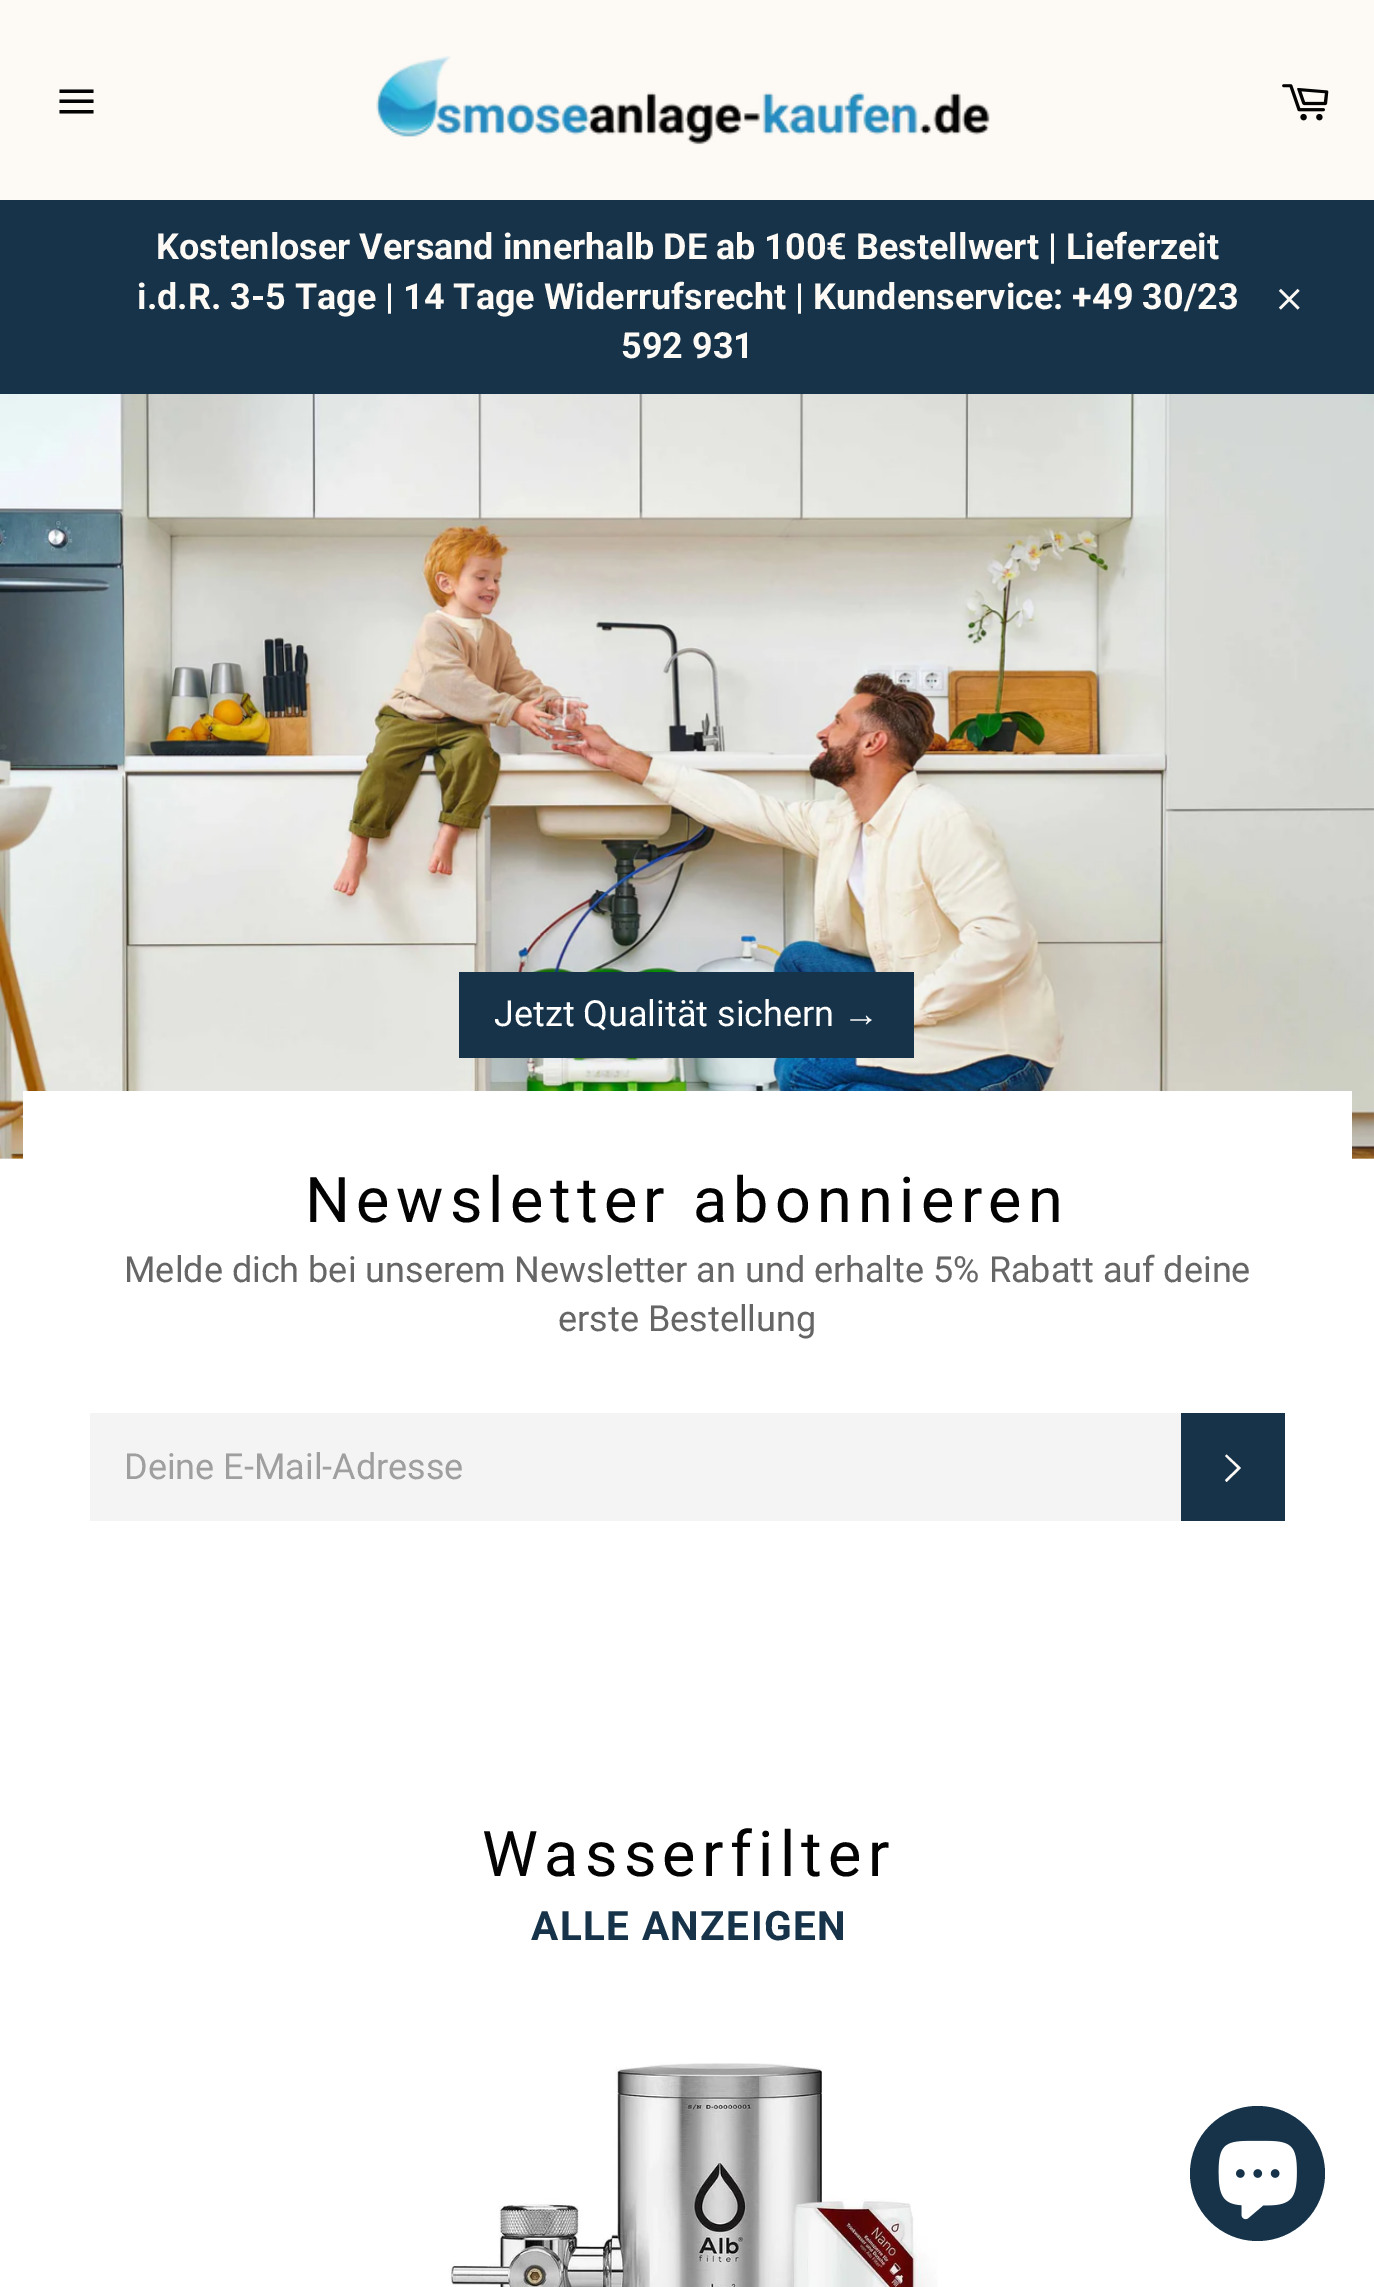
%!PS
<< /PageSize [1374 2287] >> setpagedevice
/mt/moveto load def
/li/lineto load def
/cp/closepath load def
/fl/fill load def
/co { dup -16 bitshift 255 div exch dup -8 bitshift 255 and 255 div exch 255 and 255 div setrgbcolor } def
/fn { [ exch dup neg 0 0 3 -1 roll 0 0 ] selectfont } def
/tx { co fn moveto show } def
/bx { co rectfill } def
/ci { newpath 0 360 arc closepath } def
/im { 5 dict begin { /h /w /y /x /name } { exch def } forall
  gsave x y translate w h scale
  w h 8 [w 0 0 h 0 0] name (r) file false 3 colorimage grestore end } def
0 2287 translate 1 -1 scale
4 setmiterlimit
0 0 1374 2287 16#FFFFFF bx
0 0 1374 200 16#FDF9F4 bx
16#030303 co
59.5 99.5 mt 93.5 99.5 li 93.5 103 li 59.5 103 li cp 59.5 89.5 mt 93.5 89.5 li 93.5 93 li 59.5 93 li cp 59.5 110 mt 93.5 110 li 93.5 113.5 li 59.5 113.5 li cp fl
(media/1.raw) 376 56 614 89 im
(media/2.raw) 1282 84 47 37 im
0 200 1374 194 16#16334A bx
(media/3.raw) 1278 288 22 22 im
(media/4.raw) 0 394 1374 765 im
459 972 455 86 16#16334A bx
23 1091 1329 68 16#FFFFFF bx
90 1413 1091 108 16#F4F4F4 bx
1181 1413 104 108 16#16334A bx
16#FDF9F4 co
1225 1456 mt 1226.5 1454.5 li 1241 1468 li 1226.5 1482 li 1225 1480 li 1237.5 1468 li cp fl
(media/5.raw) 449 2063 489 224 im
16#16334A co
1257.5 2173.5 67.5 ci fl
(media/6.raw) 1218 2140 79 80 im
(Kostenloser Versand innerhalb DE ab 100€ Bestellwert | Lieferzeit) 156 259 /Roboto-Bold 36 16#FDF9F4 tx
(i.d.R. 3-5 Tage | 14 Tage Widerrufsrecht | Kundenservice: +49 30/23) 137 309 /Roboto-Bold 36 16#FDF9F4 tx
(592 931) 621 358 /Roboto-Bold 36 16#FDF9F4 tx
(Jetzt Qualität sichern) 494 1026 /Roboto-Regular 36 16#FFFFFF tx
(→) 843 1026 /LiberationSans-Regular 36 16#FFFFFF tx
/Roboto-Regular 63 fn
16#030303 co
305 1222 mt 6.3 0 (Newsletter abonnieren) ashow
(Melde dich bei unserem Newsletter an und erhalte 5% Rabatt auf deine) 124 1282 /Roboto-Regular 36 16#666666 tx
(erste Bestellung) 558 1331 /Roboto-Regular 36 16#666666 tx
(Deine E-Mail-Adresse) 124 1479 /Roboto-Regular 36 16#9F9F9F tx
/Roboto-Regular 63 fn
16#030303 co
482 1876 mt 6.3 0 (Wasserfilter) ashow
/Roboto-Bold 40.5 fn
16#16334A co
531 1940 mt 1.4 0 (ALLE ANZEIGEN) ashow
showpage
